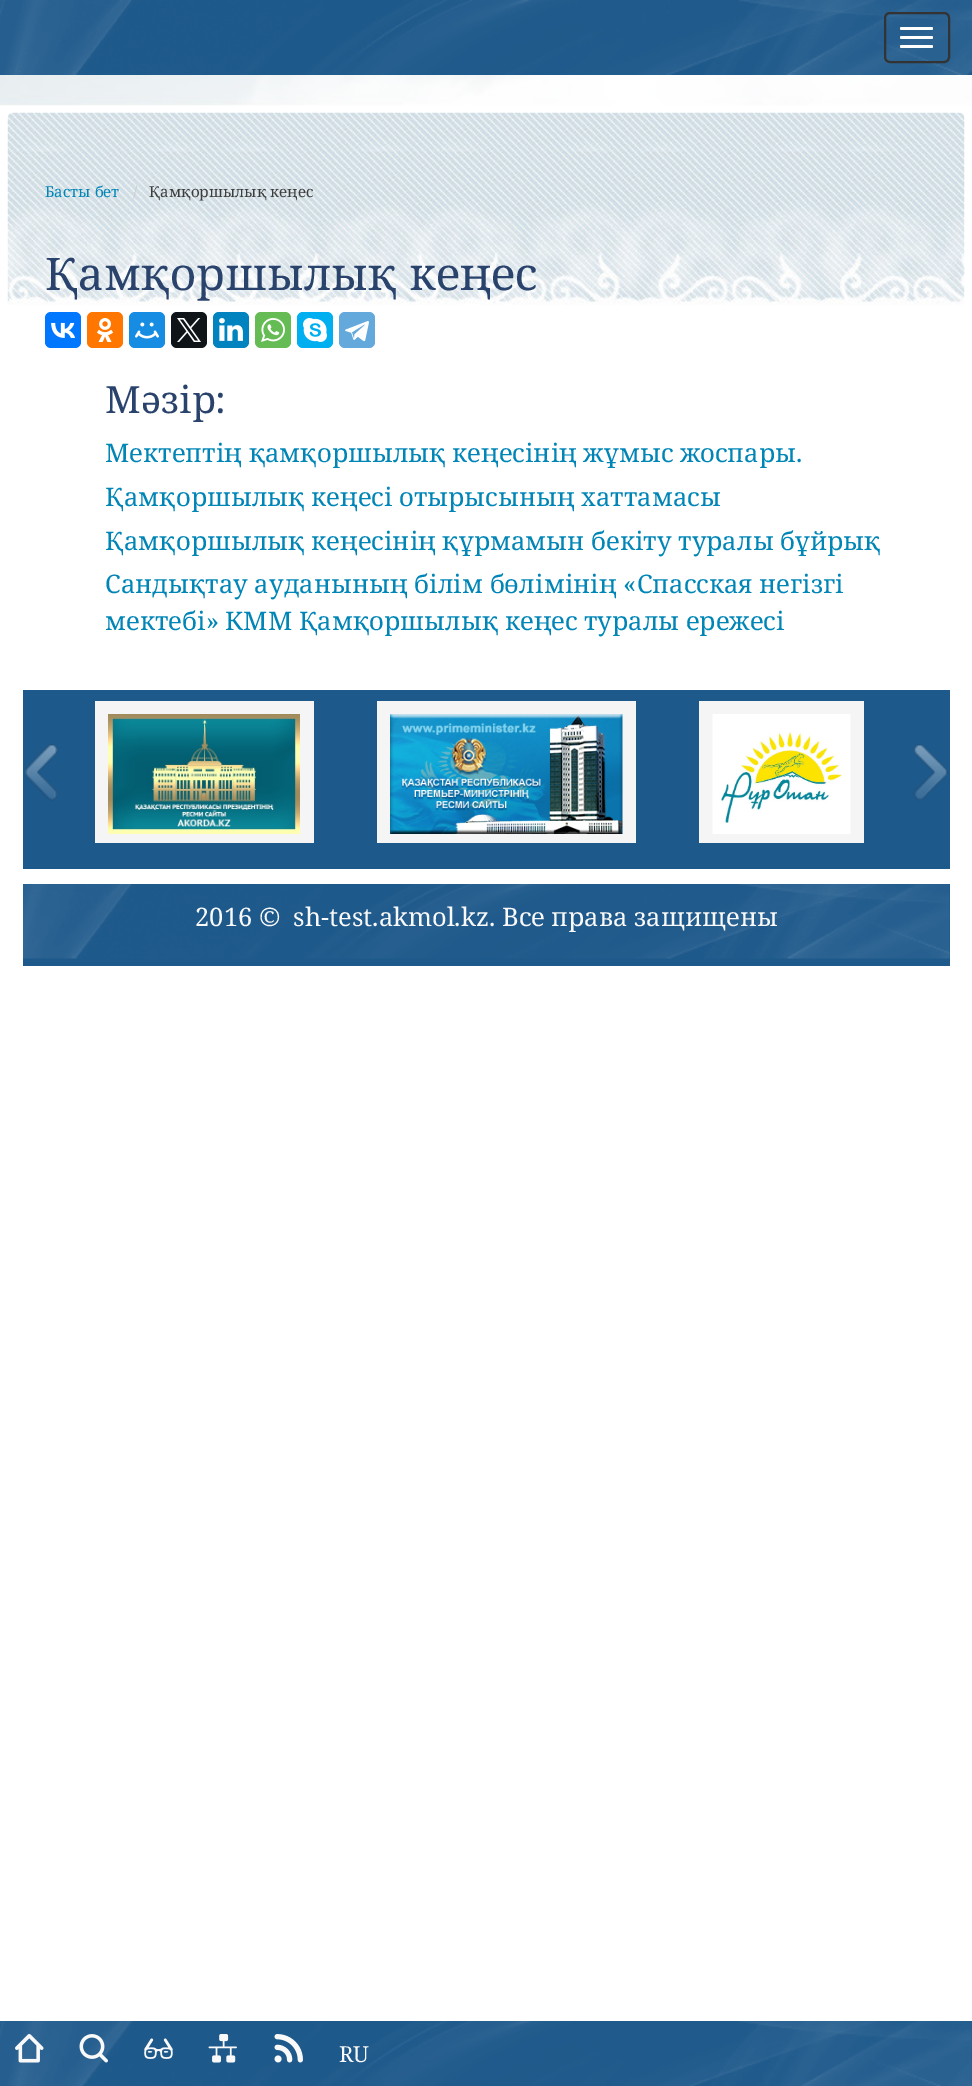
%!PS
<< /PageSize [972 2086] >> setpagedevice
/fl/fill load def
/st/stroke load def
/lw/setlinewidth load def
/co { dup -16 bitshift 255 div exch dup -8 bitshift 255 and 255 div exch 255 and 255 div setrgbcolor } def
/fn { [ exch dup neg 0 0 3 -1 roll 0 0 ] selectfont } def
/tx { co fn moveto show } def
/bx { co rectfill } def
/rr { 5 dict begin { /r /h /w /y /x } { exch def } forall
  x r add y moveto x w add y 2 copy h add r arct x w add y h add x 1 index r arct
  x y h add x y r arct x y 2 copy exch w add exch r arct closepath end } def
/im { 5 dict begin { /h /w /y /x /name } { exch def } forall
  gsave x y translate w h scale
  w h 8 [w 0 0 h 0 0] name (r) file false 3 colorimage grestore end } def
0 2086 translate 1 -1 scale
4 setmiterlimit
0 0 972 2086 16#FFFFFF bx
(media/1.raw) 0 75 972 31 im
(media/2.raw) 7 112 958 193 im
0 0 972 75 16#1E598B bx
(media/3.raw) 0 0 972 75 im
16#333333 co
2 lw
885 13 64 49 5 rr st
16#FFFFFF co
900 27 33 3 1.5 rr fl
900 36 33 3 1.5 rr fl
900 45 33 3 1.5 rr fl
16#0077FF co
45 312 36 36 6 rr fl
(media/4.raw) 51 322 24 16 im
16#FF7700 co
87 312 36 36 6 rr fl
(media/5.raw) 97 318 17 24 im
16#168DE2 co
129 312 36 36 6 rr fl
(media/6.raw) 135 322 24 17 im
16#0F1419 co
171 312 36 36 6 rr fl
(media/7.raw) 177 318 24 24 im
16#0083BE co
213 312 36 36 6 rr fl
(media/8.raw) 219 318 24 23 im
16#65BC54 co
255 312 36 36 6 rr fl
(media/9.raw) 261 318 24 24 im
16#00AFF0 co
297 312 36 36 6 rr fl
(media/10.raw) 303 318 24 24 im
16#64A9DC co
339 312 36 36 6 rr fl
(media/11.raw) 345 321 24 21 im
23 690 927 179 16#1E598B bx
(media/12.raw) 25 744 33 57 im
95 701 219 142 16#F5F5F5 bx
(media/13.raw) 108 714 192 120 im
377 701 259 142 16#F5F5F5 bx
(media/14.raw) 390 714 233 120 im
699 701 165 142 16#F5F5F5 bx
(media/15.raw) 712 714 139 120 im
(media/16.raw) 913 744 35 57 im
23 884 927 82 16#1E598B bx
(media/17.raw) 23 884 927 75 im
0 2021 972 65 16#1E598B bx
(media/18.raw) 0 2021 972 65 im
(media/19.raw) 15 2034 29 29 im
(media/20.raw) 79 2034 29 29 im
(media/21.raw) 144 2038 29 21 im
(media/22.raw) 208 2034 29 29 im
(media/23.raw) 274 2034 29 29 im
(Басты бет) 45 197 /NotoSerif-Regular 15 16#0085B7 tx
(/) 133 197 /NotoSerif-Regular 15 16#CCCCCC tx
(Қамқоршылық кеңес) 149 197 /NotoSerif-Regular 15 16#3D3D3D tx
(Қамқоршылық кеңес) 45 290 /NotoSerif-Regular 45 16#29436C tx
(Мәзір:) 105 413 /NotoSerif-Regular 37.5 16#29436C tx
(Мектептің қамқоршылық кеңесінің жұмыс жоспары.) 105 462 /NotoSerif-Regular 25.5 16#0085B7 tx
(Қамқоршылық кеңесі отырысының хаттамасы) 105 506 /NotoSerif-Regular 25.5 16#0085B7 tx
(Қамқоршылық кеңесінің құрмамын бекіту туралы бұйрық) 105 550 /NotoSerif-Regular 25.5 16#0085B7 tx
(Сандықтау ауданының білім бөлімінің «Спасская негізгі) 105 593 /NotoSerif-Regular 25.5 16#0085B7 tx
(мектебі» КММ Қамқоршылық кеңес туралы ережесі) 105 630 /NotoSerif-Regular 25.5 16#0085B7 tx
(2016 ©  sh-test.akmol.kz. Все права защищены) 195 926 /NotoSerif-Regular 25.5 16#F9F9F9 tx
(RU) 339 2062 /NotoSerif-Regular 22 16#F9F9F9 tx
showpage
